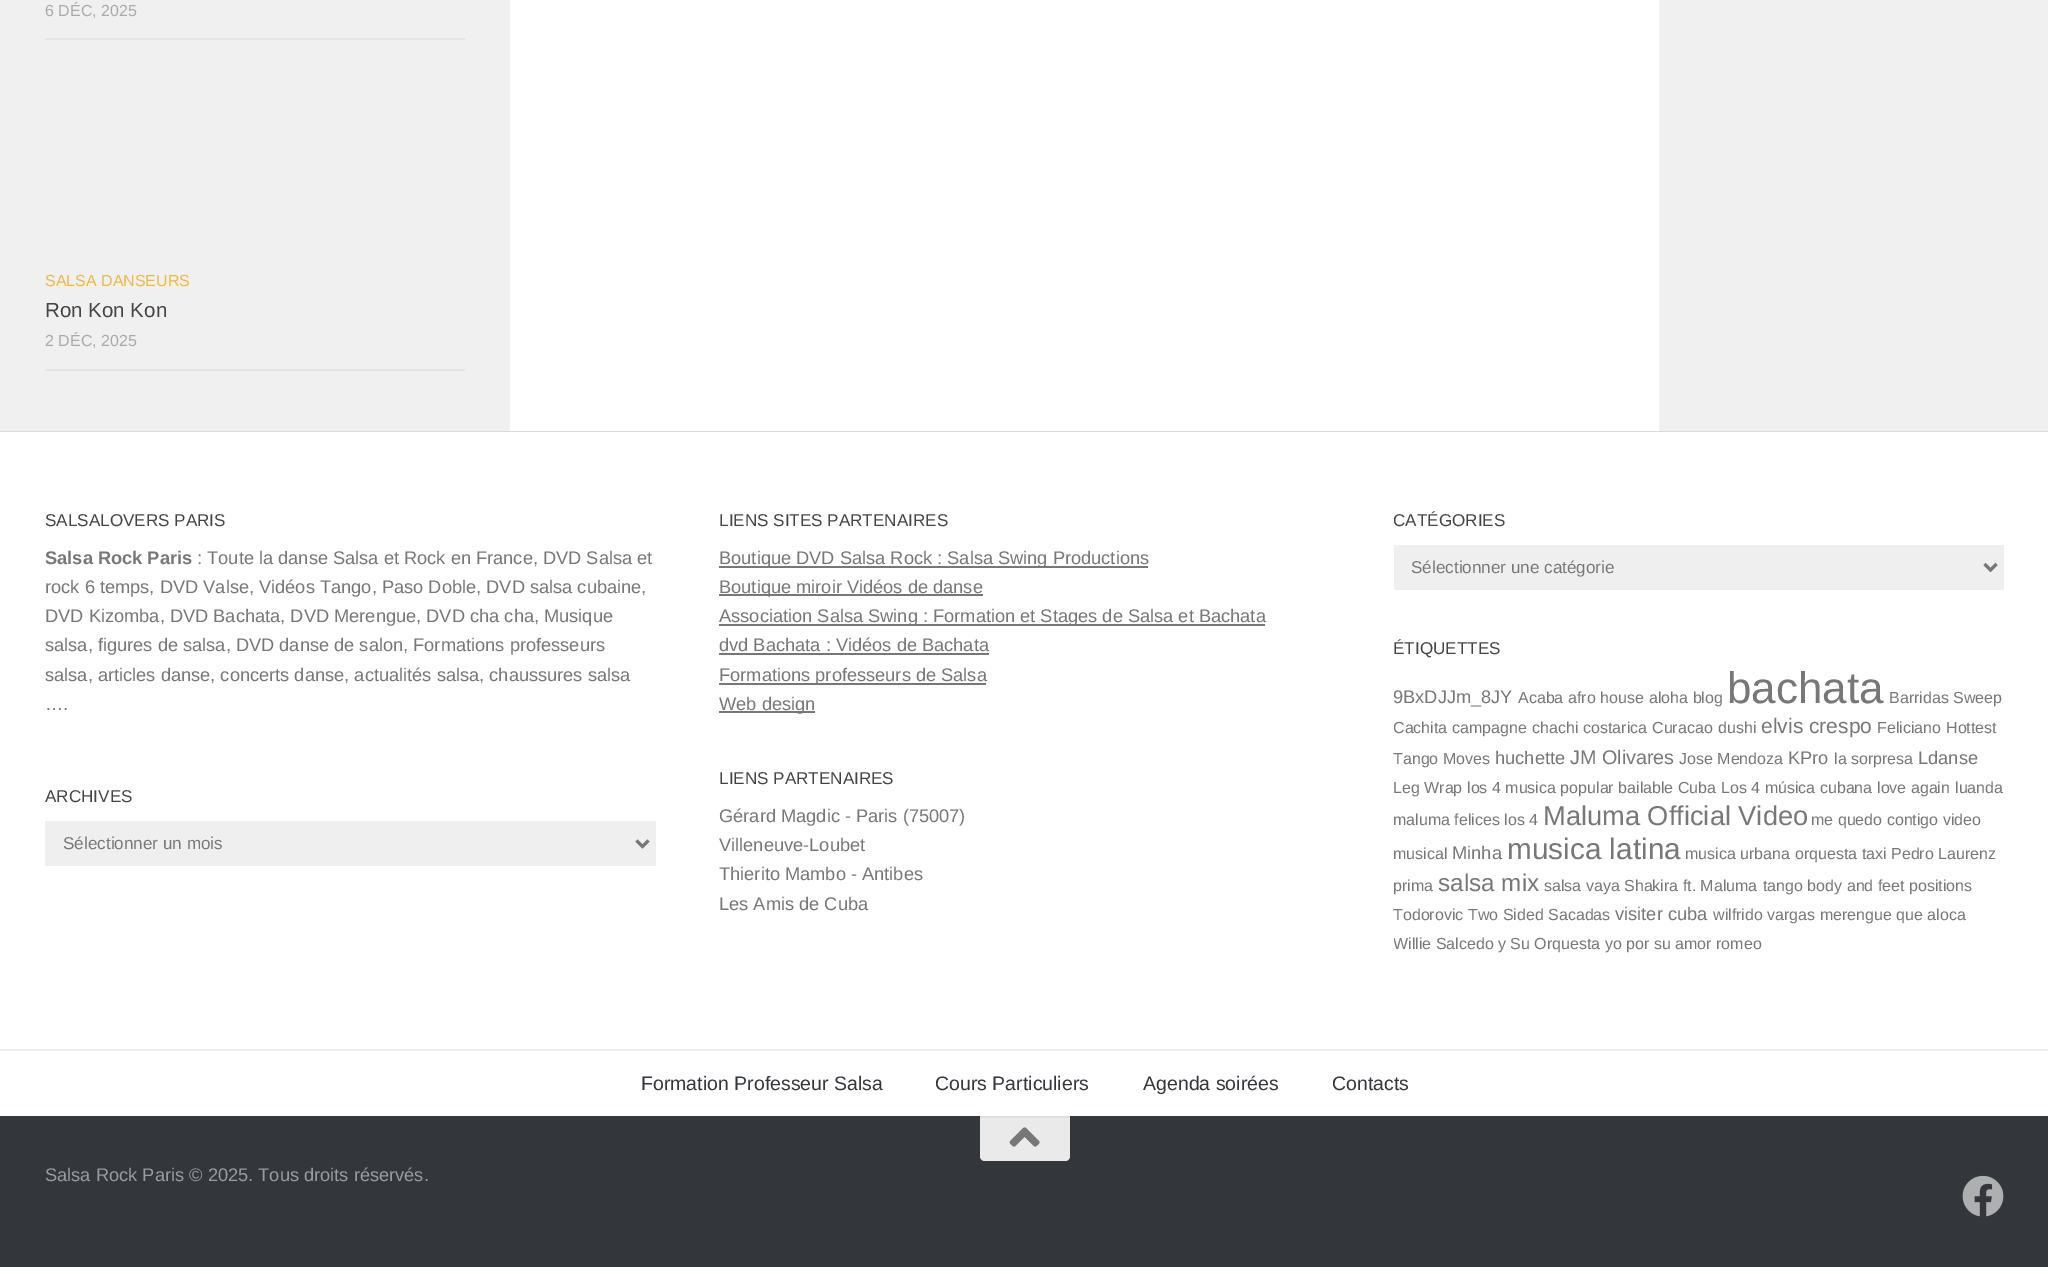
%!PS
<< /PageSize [2048 1267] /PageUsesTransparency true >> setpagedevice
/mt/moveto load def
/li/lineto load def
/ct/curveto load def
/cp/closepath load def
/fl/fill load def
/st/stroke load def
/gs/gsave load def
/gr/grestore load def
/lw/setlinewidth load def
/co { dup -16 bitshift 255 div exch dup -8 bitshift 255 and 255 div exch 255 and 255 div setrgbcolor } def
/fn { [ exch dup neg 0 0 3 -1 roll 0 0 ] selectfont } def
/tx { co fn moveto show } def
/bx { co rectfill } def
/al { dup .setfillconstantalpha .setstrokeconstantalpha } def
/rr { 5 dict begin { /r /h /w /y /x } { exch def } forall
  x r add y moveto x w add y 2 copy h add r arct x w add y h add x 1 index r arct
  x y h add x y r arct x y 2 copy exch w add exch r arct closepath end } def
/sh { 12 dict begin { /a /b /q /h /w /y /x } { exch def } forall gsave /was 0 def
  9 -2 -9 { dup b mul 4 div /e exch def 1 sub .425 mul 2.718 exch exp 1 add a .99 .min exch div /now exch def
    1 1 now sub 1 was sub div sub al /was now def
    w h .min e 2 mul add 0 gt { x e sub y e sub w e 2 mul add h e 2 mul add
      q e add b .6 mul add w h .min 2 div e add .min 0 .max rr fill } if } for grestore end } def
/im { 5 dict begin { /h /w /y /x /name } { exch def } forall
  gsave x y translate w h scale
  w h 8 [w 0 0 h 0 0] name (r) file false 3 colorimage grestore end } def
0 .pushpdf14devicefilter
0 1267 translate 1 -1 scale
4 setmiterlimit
0 0 2048 1267 16#EAEAEA bx
16#000000 co
0 -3 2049 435 0 1 .1 sh
510 0 1149 431 16#FFFFFF bx
0 0 510 431 16#F0F0F0 bx
1659 0 389 431 16#F0F0F0 bx
45 38 420 2 16#E4E4E4 bx
45 369 420 2 16#E4E4E4 bx
0 432 2048 684 16#FFFFFF bx
45 821 611 45 16#EFEFEF bx
16#777777 co
3 lw
636.5 840.5 mt 642.5 846.5 li 648.5 840.5 li st
719 566 429 2 16#777777 bx
719 594 264 2 16#777777 bx
719 624 546 2 16#777777 bx
719 653 270 2 16#777777 bx
719 683 267 2 16#777777 bx
719 711 96 2 16#777777 bx
1394 545 610 45 16#EFEFEF bx
16#777777 co
1984.5 564 mt 1990.5 570 li 1996.5 564 li st
0 1049 2048 2 16#EEEEEE bx
0 1116 2048 151 16#33363B bx
16#EAEAEA co
980 1116 mt 1070 1116 li 1070 1156 li 1070 1159 1068 1161 1065 1161 ct 985 1161 li 982 1161 980 1159 980 1156 ct cp fl
980 1116 90 2 16#DEDEDE bx
(media/1.raw) 1009 1127 31 20 im
(media/2.raw) 1962 1175 42 42 im
(6 DÉC, 2025) 45 16 /LiberationSans-Regular 16 16#AAAAAA tx
(SALSA DANSEURS) 45 286 /LiberationSans-Regular 16 16#EFB93F tx
(Ron Kon Kon) 45 317 /LiberationSans-Regular 20.5 16#444444 tx
(2 DÉC, 2025) 45 346 /LiberationSans-Regular 16 16#AAAAAA tx
(SALSALOVERS PARIS) 45 526 /LiberationSans-Regular 17.1 16#444444 tx
(Salsa Rock Paris) 45 564 /LiberationSans-Bold 18.25 16#777777 tx
(: Toute la danse Salsa et Rock en France, DVD Salsa et) 197 564 /LiberationSans-Regular 18.25 16#777777 tx
(rock 6 temps, DVD Valse, Vidéos Tango, Paso Doble, DVD salsa cubaine,) 45 593 /LiberationSans-Regular 18.25 16#777777 tx
(DVD Kizomba, DVD Bachata, DVD Merengue, DVD cha cha, Musique) 45 622 /LiberationSans-Regular 18.25 16#777777 tx
(salsa, figures de salsa, DVD danse de salon, Formations professeurs) 45 651 /LiberationSans-Regular 18.25 16#777777 tx
(salsa, articles danse, concerts danse, actualités salsa, chaussures salsa) 45 681 /LiberationSans-Regular 18.25 16#777777 tx
(….) 45 710 /LiberationSans-Regular 18.25 16#777777 tx
(ARCHIVES) 45 802 /LiberationSans-Regular 17.1 16#444444 tx
(Sélectionner un mois) 63 849 /LiberationSans-Regular 17.1 16#777777 tx
(LIENS SITES PARTENAIRES) 719 526 /LiberationSans-Regular 17.1 16#444444 tx
(Boutique DVD Salsa Rock : Salsa Swing Productions) 719 564 /LiberationSans-Regular 18.25 16#777777 tx
(Boutique miroir Vidéos de danse) 719 593 /LiberationSans-Regular 18.25 16#777777 tx
(Association Salsa Swing : Formation et Stages de Salsa et Bachata) 719 622 /LiberationSans-Regular 18.25 16#777777 tx
(dvd Bachata : Vidéos de Bachata) 719 651 /LiberationSans-Regular 18.25 16#777777 tx
(Formations professeurs de Salsa) 719 681 /LiberationSans-Regular 18.25 16#777777 tx
(Web design) 719 710 /LiberationSans-Regular 18.25 16#777777 tx
(LIENS PARTENAIRES) 719 784 /LiberationSans-Regular 17.1 16#444444 tx
(Gérard Magdic - Paris \(75007\)) 719 822 /LiberationSans-Regular 18.25 16#777777 tx
(Villeneuve-Loubet) 719 851 /LiberationSans-Regular 18.25 16#777777 tx
(Thierito Mambo - Antibes) 719 880 /LiberationSans-Regular 18.25 16#777777 tx
(Les Amis de Cuba) 719 910 /LiberationSans-Regular 18.25 16#777777 tx
gs
1394 507 610 128 rectclip
(CATÉGORIES) 1393 526 /LiberationSans-Regular 17.1 16#444444 tx
gr
(Sélectionner une catégorie) 1411 573 /LiberationSans-Regular 17.1 16#777777 tx
(ÉTIQUETTES) 1393 654 /LiberationSans-Regular 17.1 16#444444 tx
gs
1394 635 610 369 rectclip
(9BxDJJm_8JY) 1393 703 /LiberationSans-Regular 18.25 16#777777 tx
gr
(Acaba) 1518 703 /LiberationSans-Regular 16 16#777777 tx
(afro house) 1568 703 /LiberationSans-Regular 16 16#777777 tx
(aloha blog) 1649 703 /LiberationSans-Regular 16 16#777777 tx
(bachata) 1727 703 /LiberationSans-Regular 44 16#777777 tx
(Barridas Sweep) 1889 703 /LiberationSans-Regular 16 16#777777 tx
gs
1394 635 610 369 rectclip
(Cachita) 1393 733 /LiberationSans-Regular 16 16#777777 tx
gr
(campagne) 1452 733 /LiberationSans-Regular 16 16#777777 tx
(chachi) 1532 733 /LiberationSans-Regular 16 16#777777 tx
(costarica) 1583 733 /LiberationSans-Regular 16 16#777777 tx
(Curacao) 1652 733 /LiberationSans-Regular 16 16#777777 tx
(dushi) 1718 733 /LiberationSans-Regular 16 16#777777 tx
(elvis crespo) 1761 733 /LiberationSans-Regular 21 16#777777 tx
(Feliciano) 1877 733 /LiberationSans-Regular 16 16#777777 tx
(Hottest) 1946 733 /LiberationSans-Regular 16 16#777777 tx
(Tango Moves) 1393 764 /LiberationSans-Regular 16 16#777777 tx
(huchette) 1495 764 /LiberationSans-Regular 18.25 16#777777 tx
(JM Olivares) 1570 764 /LiberationSans-Regular 19.75 16#777777 tx
(Jose Mendoza) 1679 764 /LiberationSans-Regular 16 16#777777 tx
(KPro) 1788 764 /LiberationSans-Regular 18.25 16#777777 tx
(la sorpresa) 1834 764 /LiberationSans-Regular 16 16#777777 tx
(Ldanse) 1918 764 /LiberationSans-Regular 18.25 16#777777 tx
(Leg Wrap) 1393 793 /LiberationSans-Regular 16 16#777777 tx
(los 4 musica popular bailable Cuba) 1467 793 /LiberationSans-Regular 16 16#777777 tx
(Los 4 música cubana) 1721 793 /LiberationSans-Regular 16 16#777777 tx
(love again) 1877 793 /LiberationSans-Regular 16 16#777777 tx
(luanda) 1955 793 /LiberationSans-Regular 16 16#777777 tx
gs
1394 635 610 369 rectclip
(maluma felices los 4) 1393 825 /LiberationSans-Regular 16 16#777777 tx
gr
(Maluma Official Video) 1543 825 /LiberationSans-Regular 27.25 16#777777 tx
(me quedo contigo video) 1811 825 /LiberationSans-Regular 16 16#777777 tx
gs
1394 635 610 369 rectclip
(musical) 1393 859 /LiberationSans-Regular 16 16#777777 tx
gr
(Minha) 1452 859 /LiberationSans-Regular 18.25 16#777777 tx
(musica latina) 1507 859 /LiberationSans-Regular 29.75 16#777777 tx
(musica urbana) 1685 859 /LiberationSans-Regular 16 16#777777 tx
(orquesta taxi) 1795 859 /LiberationSans-Regular 16 16#777777 tx
(Pedro Laurenz) 1891 859 /LiberationSans-Regular 16 16#777777 tx
gs
1394 635 610 369 rectclip
(prima) 1393 891 /LiberationSans-Regular 16 16#777777 tx
gr
(salsa mix) 1438 891 /LiberationSans-Regular 24.25 16#777777 tx
(salsa vaya) 1544 891 /LiberationSans-Regular 16 16#777777 tx
(Shakira ft. Maluma) 1624 891 /LiberationSans-Regular 16 16#777777 tx
(tango body and feet positions) 1763 891 /LiberationSans-Regular 16 16#777777 tx
(Todorovic) 1393 920 /LiberationSans-Regular 16 16#777777 tx
(Two Sided Sacadas) 1468 920 /LiberationSans-Regular 16 16#777777 tx
(visiter cuba) 1615 920 /LiberationSans-Regular 18.25 16#777777 tx
(wilfrido vargas merengue que aloca) 1713 920 /LiberationSans-Regular 16 16#777777 tx
gs
1394 635 610 369 rectclip
(Willie Salcedo y Su Orquesta) 1393 949 /LiberationSans-Regular 16 16#777777 tx
gr
(yo por su amor romeo) 1605 949 /LiberationSans-Regular 16 16#777777 tx
(Formation Professeur Salsa) 641 1090 /LiberationSans-Regular 19.5 16#33363B tx
(Cours Particuliers) 935 1090 /LiberationSans-Regular 19.5 16#33363B tx
(Agenda soirées) 1143 1090 /LiberationSans-Regular 19.5 16#33363B tx
(Contacts) 1332 1090 /LiberationSans-Regular 19.5 16#33363B tx
(Salsa Rock Paris © 2025. Tous droits réservés.) 45 1181 /LiberationSans-Regular 18.25 16#999B9D tx
.poppdf14devicefilter showpage
